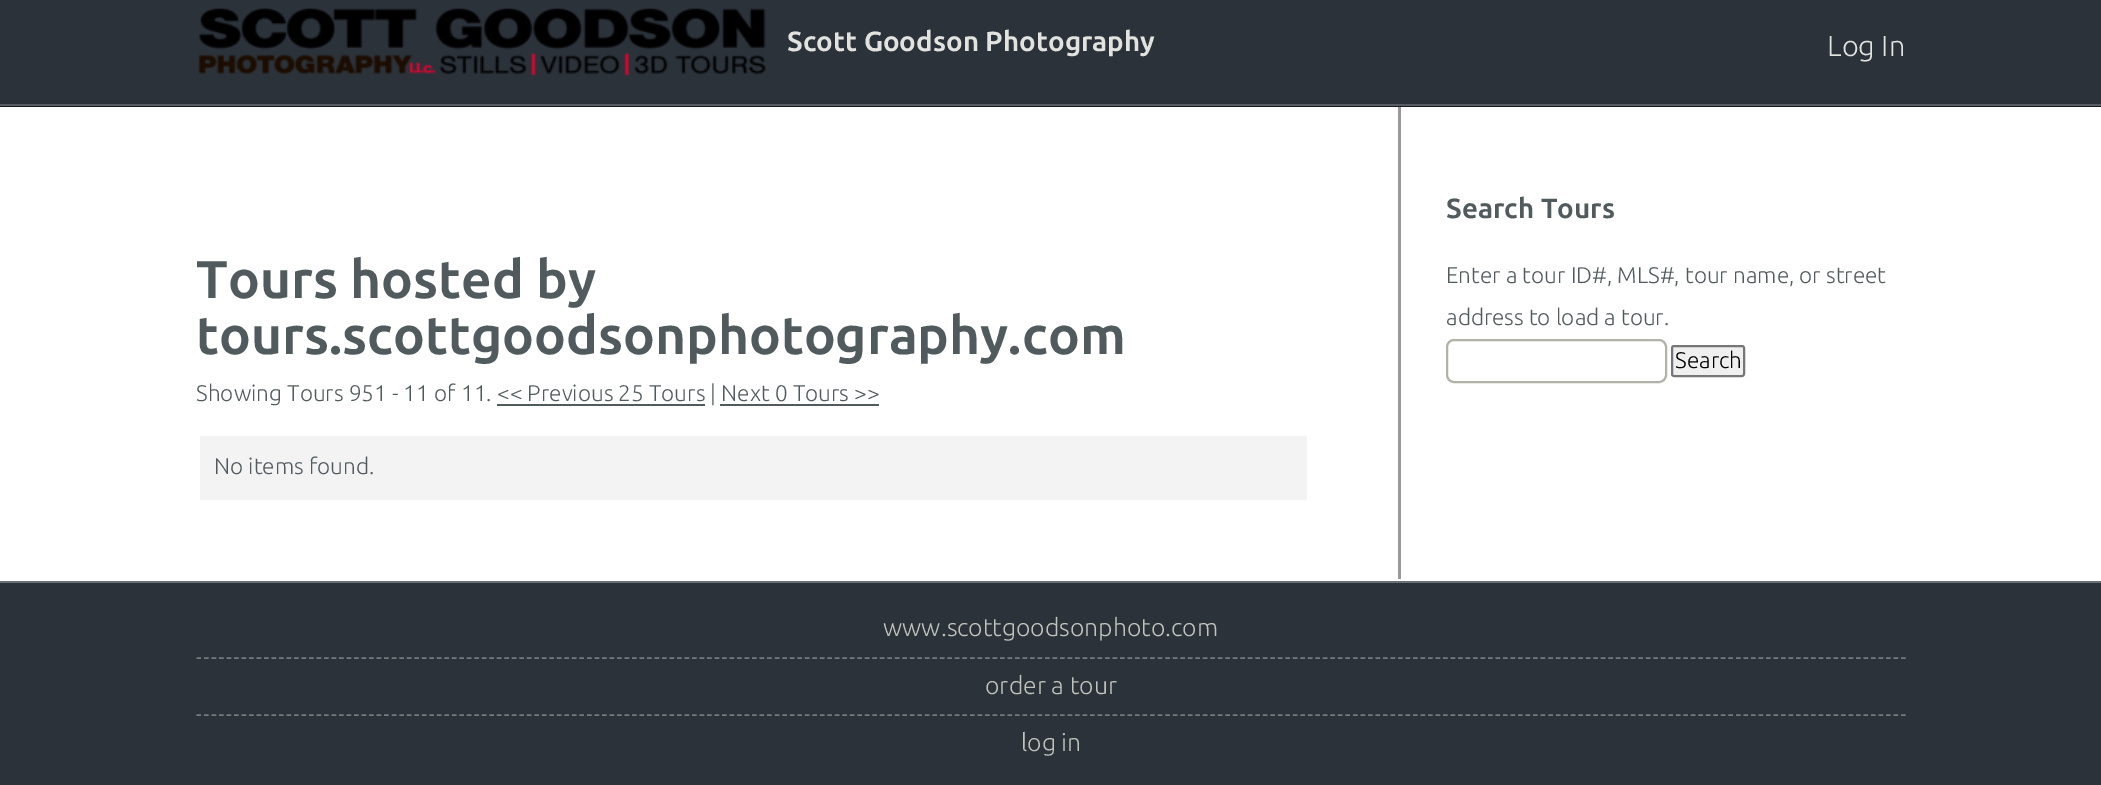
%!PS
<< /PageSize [2101 785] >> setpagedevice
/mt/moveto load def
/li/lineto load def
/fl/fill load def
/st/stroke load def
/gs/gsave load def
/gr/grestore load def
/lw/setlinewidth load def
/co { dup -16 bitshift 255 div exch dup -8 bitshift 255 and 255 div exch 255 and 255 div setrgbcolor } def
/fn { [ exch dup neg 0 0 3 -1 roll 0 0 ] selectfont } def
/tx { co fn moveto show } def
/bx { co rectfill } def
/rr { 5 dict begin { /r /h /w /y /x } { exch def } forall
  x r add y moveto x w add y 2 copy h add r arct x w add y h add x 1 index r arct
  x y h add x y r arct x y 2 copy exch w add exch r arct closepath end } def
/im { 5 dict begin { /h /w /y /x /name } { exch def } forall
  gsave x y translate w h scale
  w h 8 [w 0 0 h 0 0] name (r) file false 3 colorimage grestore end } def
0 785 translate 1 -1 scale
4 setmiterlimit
0 0 2101 785 16#2B323A bx
0 106 2101 1 16#16191D bx
(media/1.raw) 198 8 568 68 im
0 104 2101 2 16#595E63 bx
0 107 2101 474 16#FFFFFF bx
497 404 208 2 16#515B5E bx
720 404 159 2 16#515B5E bx
200 436 1107 64 16#F3F3F3 bx
1398 107 3 472 16#999999 bx
16#B1B3A9 co
2 lw
1447 340 219 42 7 rr st
16#EFEFEF co
1672 346 72 30 2 rr gs fl gr
16#767676 co
st
0 581 2101 2 16#6B7075 bx
16#777B7B co
1.5 lw
[4.5 3.01] 0 setdash
196.5 658 mt 1906.5 658 li st
196.5 715 mt 1906.5 715 li st
(Scott Goodson Photography) 787 51 /Ubuntu-Bold 27.75 16#E2E3DF tx
(Log In) 1827 56 /Ubuntu-Light 29 16#E2E3DF tx
gs
197 107 1117 474 rectclip
(Tours hosted by) 196 298 /Ubuntu-Bold 53.1 16#515B5E tx
gr
(tours.scottgoodsonphotography.com) 196 354 /Ubuntu-Bold 53.1 16#515B5E tx
(Showing Tours 951 - 11 of 11. << Previous 25 Tours | Next 0 Tours >>) 196 401 /Ubuntu-Light 22.6 16#515B5E tx
(No items found.) 214 474 /Ubuntu-Light 22.6 16#515B5E tx
(Search Tours) 1446 218 /Ubuntu-Bold 27.75 16#515B5E tx
(Enter a tour ID#, MLS#, tour name, or street) 1446 283 /Ubuntu-Light 22.6 16#515B5E tx
(address to load a tour.) 1446 325 /Ubuntu-Light 22.6 16#515B5E tx
(Search) 1675 368 /Ubuntu-Light 22.6 16#000000 tx
(www.scottgoodsonphoto.com) 883 636 /Ubuntu-Light 24.8 16#C2C4BC tx
(order a tour) 985 694 /Ubuntu-Light 24.8 16#C2C4BC tx
(log in) 1021 751 /Ubuntu-Light 24.8 16#C2C4BC tx
showpage
